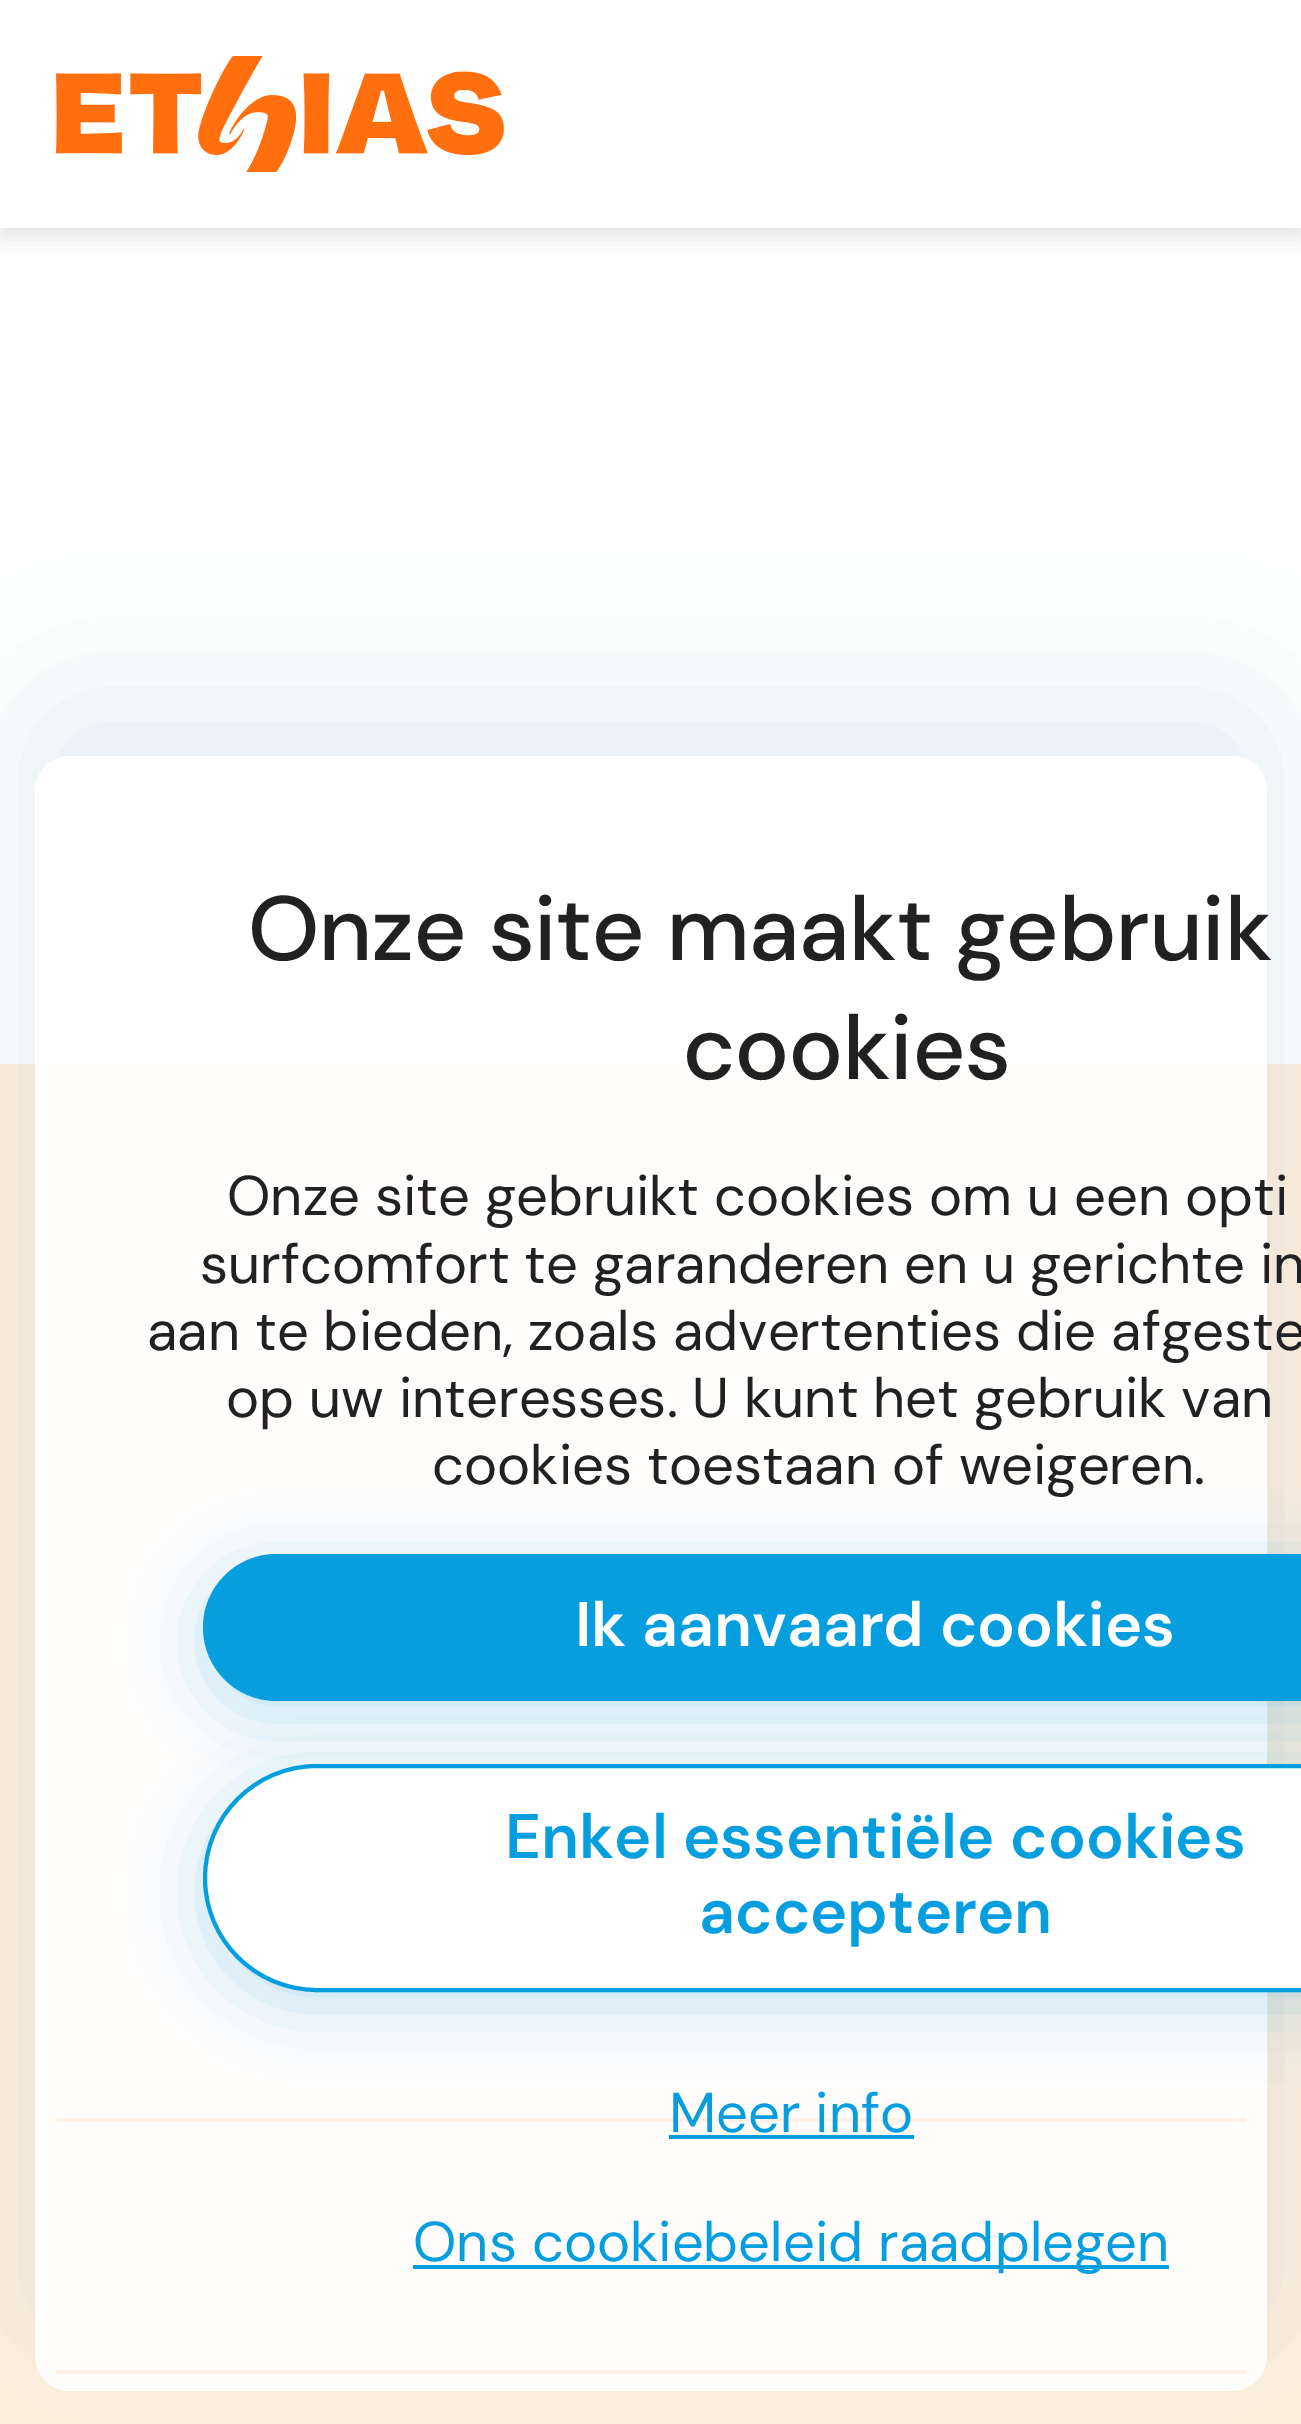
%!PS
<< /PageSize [1301 2424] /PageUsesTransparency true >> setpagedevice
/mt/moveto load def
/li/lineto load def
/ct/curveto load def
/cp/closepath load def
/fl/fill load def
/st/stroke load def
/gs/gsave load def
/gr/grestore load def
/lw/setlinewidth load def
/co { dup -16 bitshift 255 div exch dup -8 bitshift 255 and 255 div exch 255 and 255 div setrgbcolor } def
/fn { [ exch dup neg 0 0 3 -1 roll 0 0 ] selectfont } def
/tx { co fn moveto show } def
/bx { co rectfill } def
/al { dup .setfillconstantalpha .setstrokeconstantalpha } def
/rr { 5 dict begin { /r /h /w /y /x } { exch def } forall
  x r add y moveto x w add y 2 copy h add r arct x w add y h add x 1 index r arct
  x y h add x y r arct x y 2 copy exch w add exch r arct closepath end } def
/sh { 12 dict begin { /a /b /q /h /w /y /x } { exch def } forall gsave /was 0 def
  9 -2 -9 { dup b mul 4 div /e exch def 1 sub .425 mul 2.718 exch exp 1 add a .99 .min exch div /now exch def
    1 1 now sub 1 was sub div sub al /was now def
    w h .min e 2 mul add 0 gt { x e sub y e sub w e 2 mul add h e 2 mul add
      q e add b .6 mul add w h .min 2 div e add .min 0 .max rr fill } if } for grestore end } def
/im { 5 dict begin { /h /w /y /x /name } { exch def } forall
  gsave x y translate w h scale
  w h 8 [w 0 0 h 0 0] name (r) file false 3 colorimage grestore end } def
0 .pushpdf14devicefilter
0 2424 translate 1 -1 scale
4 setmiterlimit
0 0 1301 2424 16#FFFFFF bx
16#000000 co
0 11 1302 227 0 10.5 .1 sh
0 0 1301 228 16#FFFFFF bx
(media/1.raw) 56 56 448 116 im
0 1064 1301 1360 16#FFEFDC bx
56 2118 1190 4 16#FF6F0D bx
56 2370 1190 4 16#FF6F0D bx
gs
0 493 mt 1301 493 li 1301 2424 li 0 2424 li cp 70 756 mt 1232 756 li 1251.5 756 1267 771.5 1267 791 ct 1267 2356 li 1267 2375.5 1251.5 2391 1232 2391 ct 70 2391 li 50.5 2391 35 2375.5 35 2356 ct 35 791 li 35 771.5 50.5 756 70 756 ct cp eoclip newpath
16#4682B7 co
35 704 1232 1634 35 70 .15 sh
gr
0.9 al
16#FFFFFF co
35 756 1232 1635 35 rr fl
1 al
16#069EDE co
203 1568 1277 147 73.5 35 .25 sh
203 1554 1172 147 73.5 rr fl
203 1778 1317 228 114 35 .25 sh
16#FFFFFF co
205 1766 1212 224 112 rr gs fl gr
16#069EDE co
4 lw
st
669 2135 245 4 16#069EDE bx
413 2265 756 4 16#069EDE bx
(Onze site maakt gebruik) 248 960 /DMSans-Medium 91 16#212121 tx
(cookies) 683 1079 /DMSans-Medium 91 16#212121 tx
(Onze site gebruikt cookies om u een opti) 227 1215 /DMSans-Regular 56 16#212121 tx
(surfcomfort te garanderen en u gerichte in) 200 1283 /DMSans-Regular 56 16#212121 tx
(aan te bieden, zoals advertenties die afgeste) 147 1350 /DMSans-Regular 56 16#212121 tx
(op uw interesses. U kunt het gebruik van) 226 1417 /DMSans-Regular 56 16#212121 tx
(cookies toestaan of weigeren.) 432 1484 /DMSans-Regular 56 16#212121 tx
(Ik aanvaard cookies) 575 1646 /DMSans-SemiBold 63 16#FFFFFF tx
(Enkel essentiële cookies) 505 1858 /DMSans-SemiBold 63 16#069EDE tx
(accepteren) 699 1933 /DMSans-SemiBold 63 16#069EDE tx
(Meer info) 669 2132 /DMSans-Regular 56 16#069EDE tx
(Ons cookiebeleid raadplegen) 413 2261 /DMSans-Regular 56 16#069EDE tx
.poppdf14devicefilter showpage
